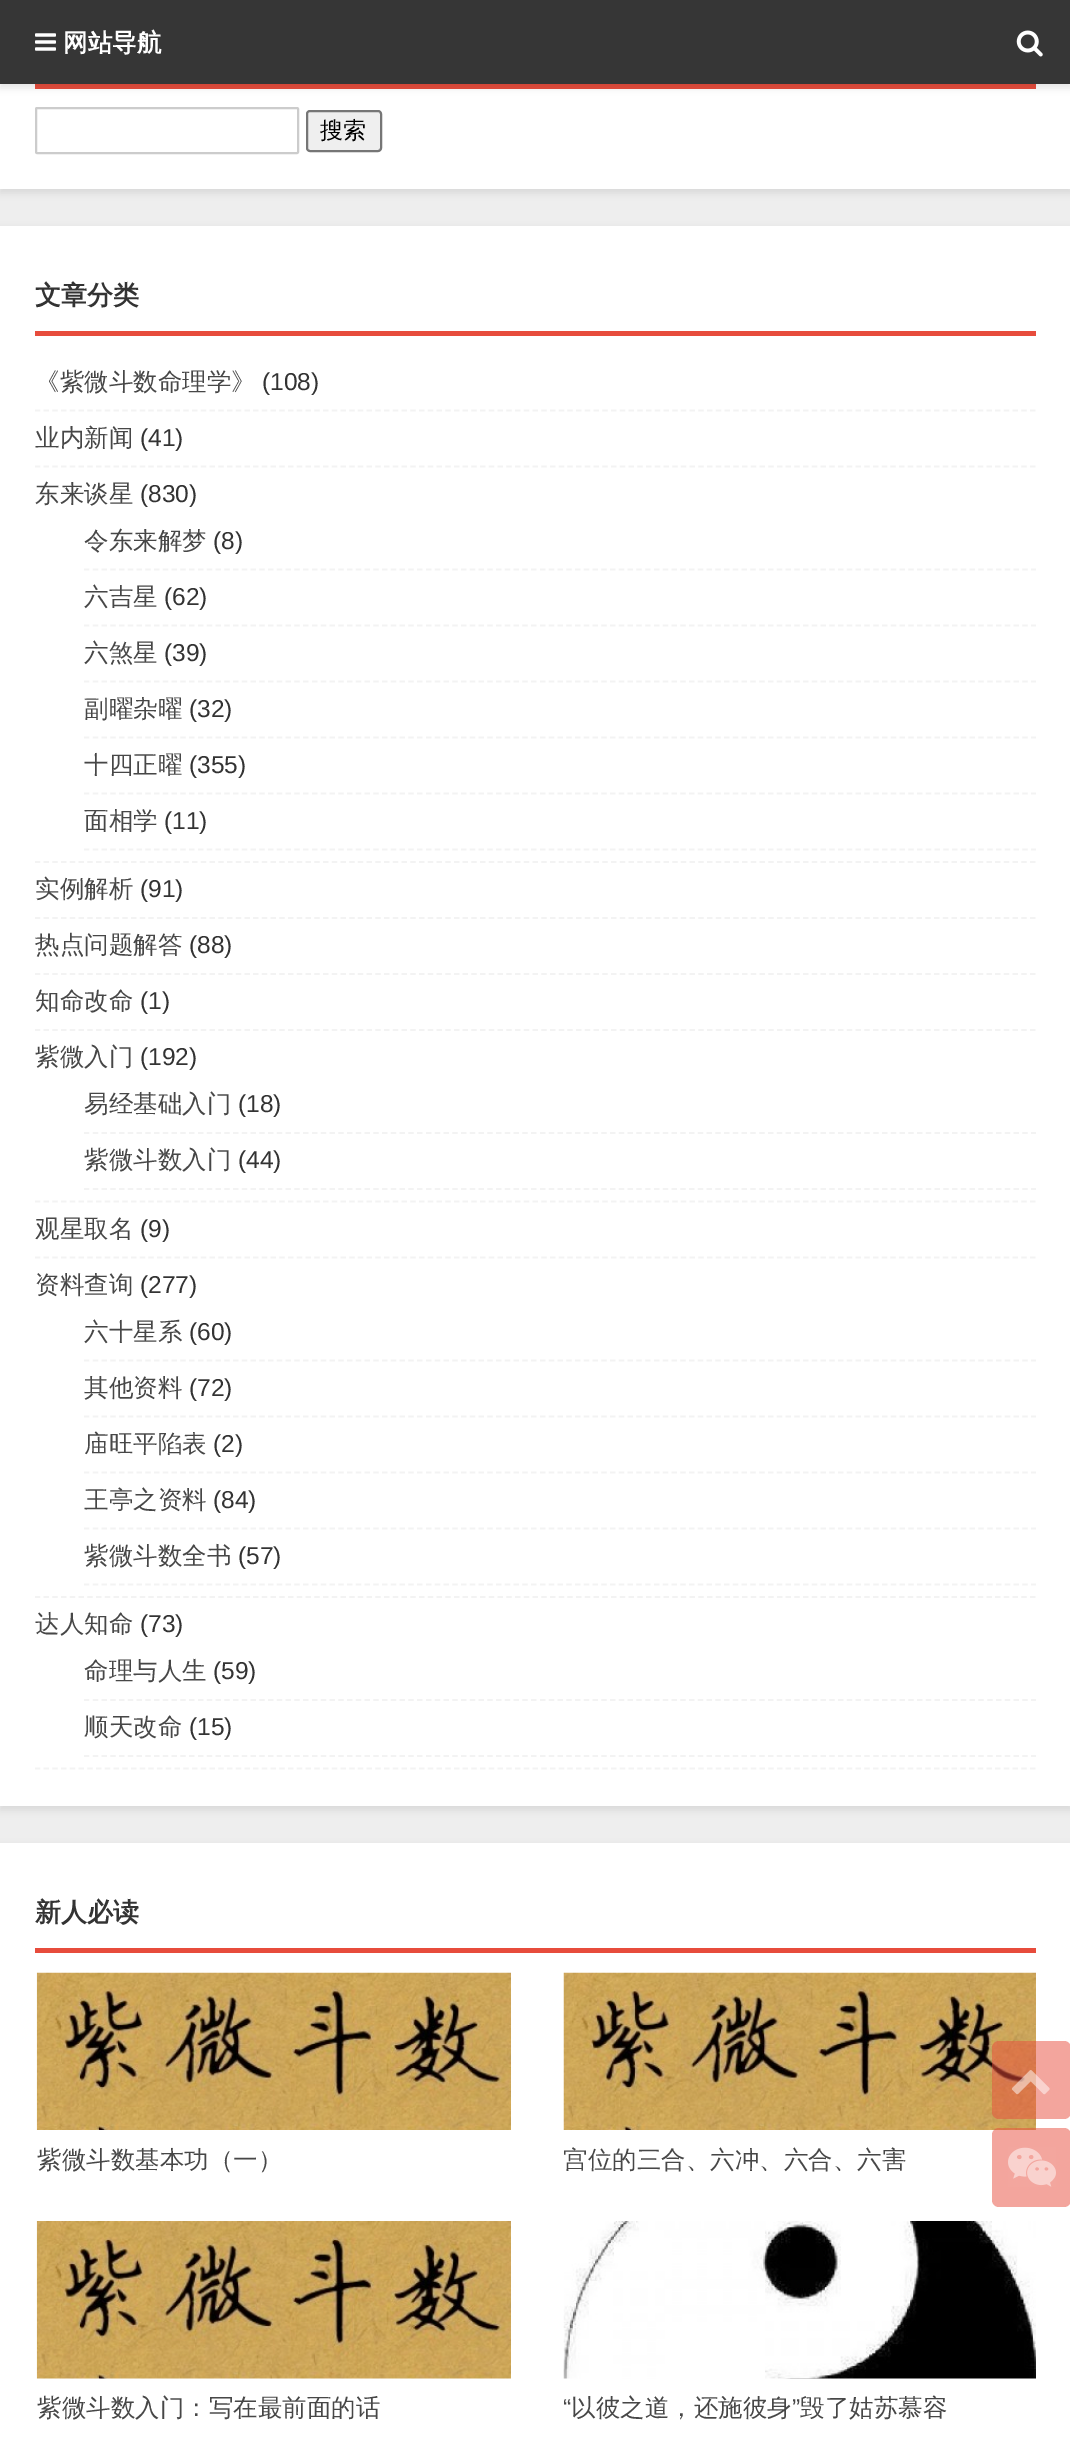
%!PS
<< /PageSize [1070 2462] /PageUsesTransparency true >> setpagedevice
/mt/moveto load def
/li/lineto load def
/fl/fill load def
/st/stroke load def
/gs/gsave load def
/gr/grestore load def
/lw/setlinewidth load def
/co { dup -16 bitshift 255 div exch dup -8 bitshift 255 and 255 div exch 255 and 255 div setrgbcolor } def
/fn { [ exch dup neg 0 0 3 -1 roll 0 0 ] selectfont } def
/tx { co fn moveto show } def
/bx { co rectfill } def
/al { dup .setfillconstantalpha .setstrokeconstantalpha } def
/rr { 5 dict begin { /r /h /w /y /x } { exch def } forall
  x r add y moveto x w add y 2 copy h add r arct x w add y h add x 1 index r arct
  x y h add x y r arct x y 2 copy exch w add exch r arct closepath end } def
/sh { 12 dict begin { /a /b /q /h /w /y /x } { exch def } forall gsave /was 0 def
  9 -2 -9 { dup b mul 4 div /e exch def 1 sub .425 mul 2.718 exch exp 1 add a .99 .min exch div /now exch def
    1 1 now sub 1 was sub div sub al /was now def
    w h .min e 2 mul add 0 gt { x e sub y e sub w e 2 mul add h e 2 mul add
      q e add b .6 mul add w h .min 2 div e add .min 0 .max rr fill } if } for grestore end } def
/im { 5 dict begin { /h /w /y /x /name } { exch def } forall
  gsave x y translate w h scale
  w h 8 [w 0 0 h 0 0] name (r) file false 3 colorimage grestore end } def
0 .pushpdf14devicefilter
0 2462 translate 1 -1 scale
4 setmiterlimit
0 0 1070 2462 16#EEEEEE bx
16#D9D9D9 co
0 -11 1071 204 0 3.5 1 sh
0 84 1070 105 16#FFFFFF bx
35 84 1001 5 16#E74C3C bx
16#000000 co
0 4 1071 84 0 3.5 .1 sh
0 0 1070 84 16#363636 bx
(media/1.raw) 35 33 21 18 im
(media/2.raw) 1016 30 27 27 im
16#CCCCCC co
2 lw
36 108 262 45 1 rr st
16#EFEFEF co
307 111 74 40 3 rr gs fl gr
16#767676 co
st
16#D9D9D9 co
0 229 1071 1581 0 3.5 1 sh
0 226 1070 1580 16#FFFFFF bx
35 331 1001 5 16#E74C3C bx
16#F3F3F3 co
1.8 lw
[5.25 3.48] 0 setdash
35 410.5 mt 1036 410.5 li st
35 466.5 mt 1036 466.5 li st
35 862 mt 1036 862 li st
[5.25 3.52] 0 setdash
84 569.5 mt 1036 569.5 li st
84 625.5 mt 1036 625.5 li st
84 681.5 mt 1036 681.5 li st
84 737.5 mt 1036 737.5 li st
84 793.5 mt 1036 793.5 li st
84 849.5 mt 1036 849.5 li st
[5.25 3.48] 0 setdash
35 918 mt 1036 918 li st
35 974 mt 1036 974 li st
35 1030 mt 1036 1030 li st
35 1201.5 mt 1036 1201.5 li st
[5.25 3.52] 0 setdash
84 1133 mt 1036 1133 li st
84 1189 mt 1036 1189 li st
[5.25 3.48] 0 setdash
35 1257.5 mt 1036 1257.5 li st
35 1597 mt 1036 1597 li st
[5.25 3.52] 0 setdash
84 1360.5 mt 1036 1360.5 li st
84 1416.5 mt 1036 1416.5 li st
84 1472.5 mt 1036 1472.5 li st
84 1528.5 mt 1036 1528.5 li st
84 1584.5 mt 1036 1584.5 li st
[5.25 3.48] 0 setdash
35 1768.5 mt 1036 1768.5 li st
[5.25 3.52] 0 setdash
84 1700 mt 1036 1700 li st
84 1756 mt 1036 1756 li st
16#D9D9D9 co
0 1846 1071 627 0 3.5 1 sh
0 1843 1070 619 16#FFFFFF bx
35 1948 1001 5 16#E74C3C bx
(media/3.raw) 36 1972 475 158 im
(media/4.raw) 563 1972 473 158 im
(media/5.raw) 36 2221 475 158 im
(media/6.raw) 563 2221 473 158 im
0.5 al
992 2041 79 78 7 rr fl
1 al
(media/7.raw) 1011 2070 39 25 im
0.5 al
992 2128 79 79 7 rr fl
1 al
(media/8.raw) 1008 2147 48 40 im
(网站导航) 63 51 /WenQuanYiZenHei-Bold 24.5 16#FFFFFF tx
(搜索) 320 138 /WenQuanYiZenHei-Medium 23 16#000000 tx
(文章分类) 35 304 /WenQuanYiZenHei-Bold 26 16#333333 tx
(《紫微斗数命理学》) 35 390 /WenQuanYiZenHei-Medium 24.5 16#474747 tx
(\(108\)) 262 390 /LiberationSans-Regular 24.5 16#333333 tx
(业内新闻) 35 446 /WenQuanYiZenHei-Medium 24.5 16#474747 tx
(\(41\)) 140 446 /LiberationSans-Regular 24.5 16#333333 tx
(东来谈星) 35 502 /WenQuanYiZenHei-Medium 24.5 16#474747 tx
(\(830\)) 140 502 /LiberationSans-Regular 24.5 16#333333 tx
(令东来解梦) 84 549 /WenQuanYiZenHei-Medium 24.5 16#474747 tx
(\(8\)) 213 549 /LiberationSans-Regular 24.5 16#333333 tx
(六吉星) 84 605 /WenQuanYiZenHei-Medium 24.5 16#474747 tx
(\(62\)) 164 605 /LiberationSans-Regular 24.5 16#333333 tx
(六煞星) 84 661 /WenQuanYiZenHei-Medium 24.5 16#474747 tx
(\(39\)) 164 661 /LiberationSans-Regular 24.5 16#333333 tx
(副曜杂曜) 84 717 /WenQuanYiZenHei-Medium 24.5 16#474747 tx
(\(32\)) 189 717 /LiberationSans-Regular 24.5 16#333333 tx
(十四正曜) 84 773 /WenQuanYiZenHei-Medium 24.5 16#474747 tx
(\(355\)) 189 773 /LiberationSans-Regular 24.5 16#333333 tx
(面相学) 84 829 /WenQuanYiZenHei-Medium 24.5 16#474747 tx
(\(11\)) 164 829 /LiberationSans-Regular 24.5 16#333333 tx
(实例解析) 35 897 /WenQuanYiZenHei-Medium 24.5 16#474747 tx
(\(91\)) 140 897 /LiberationSans-Regular 24.5 16#333333 tx
(热点问题解答) 35 953 /WenQuanYiZenHei-Medium 24.5 16#474747 tx
(\(88\)) 189 953 /LiberationSans-Regular 24.5 16#333333 tx
(知命改命) 35 1009 /WenQuanYiZenHei-Medium 24.5 16#474747 tx
(\(1\)) 140 1009 /LiberationSans-Regular 24.5 16#333333 tx
(紫微入门) 35 1065 /WenQuanYiZenHei-Medium 24.5 16#474747 tx
(\(192\)) 140 1065 /LiberationSans-Regular 24.5 16#333333 tx
(易经基础入门) 84 1112 /WenQuanYiZenHei-Medium 24.5 16#474747 tx
(\(18\)) 238 1112 /LiberationSans-Regular 24.5 16#333333 tx
(紫微斗数入门) 84 1168 /WenQuanYiZenHei-Medium 24.5 16#474747 tx
(\(44\)) 238 1168 /LiberationSans-Regular 24.5 16#333333 tx
(观星取名) 35 1237 /WenQuanYiZenHei-Medium 24.5 16#474747 tx
(\(9\)) 140 1237 /LiberationSans-Regular 24.5 16#333333 tx
(资料查询) 35 1293 /WenQuanYiZenHei-Medium 24.5 16#474747 tx
(\(277\)) 140 1293 /LiberationSans-Regular 24.5 16#333333 tx
(六十星系) 84 1340 /WenQuanYiZenHei-Medium 24.5 16#474747 tx
(\(60\)) 189 1340 /LiberationSans-Regular 24.5 16#333333 tx
(其他资料) 84 1396 /WenQuanYiZenHei-Medium 24.5 16#474747 tx
(\(72\)) 189 1396 /LiberationSans-Regular 24.5 16#333333 tx
(庙旺平陷表) 84 1452 /WenQuanYiZenHei-Medium 24.5 16#474747 tx
(\(2\)) 213 1452 /LiberationSans-Regular 24.5 16#333333 tx
(王亭之资料) 84 1508 /WenQuanYiZenHei-Medium 24.5 16#474747 tx
(\(84\)) 213 1508 /LiberationSans-Regular 24.5 16#333333 tx
(紫微斗数全书) 84 1564 /WenQuanYiZenHei-Medium 24.5 16#474747 tx
(\(57\)) 238 1564 /LiberationSans-Regular 24.5 16#333333 tx
(达人知命) 35 1632 /WenQuanYiZenHei-Medium 24.5 16#474747 tx
(\(73\)) 140 1632 /LiberationSans-Regular 24.5 16#333333 tx
(命理与人生) 84 1679 /WenQuanYiZenHei-Medium 24.5 16#474747 tx
(\(59\)) 213 1679 /LiberationSans-Regular 24.5 16#333333 tx
(顺天改命) 84 1735 /WenQuanYiZenHei-Medium 24.5 16#474747 tx
(\(15\)) 189 1735 /LiberationSans-Regular 24.5 16#333333 tx
(新人必读) 35 1921 /WenQuanYiZenHei-Bold 26 16#333333 tx
(紫微斗数基本功（一）) 37 2168 /WenQuanYiZenHei-Medium 24.5 16#474747 tx
gs
564 2144 472 59 rectclip
(宫位的三合、六冲、六合、六害) 563 2168 /WenQuanYiZenHei-Medium 24.5 16#474747 tx
gr
(紫微斗数入门：写在最前面的话) 37 2416 /WenQuanYiZenHei-Medium 24.5 16#474747 tx
gs
564 2392 472 60 rectclip
(“) 563 2416 /LiberationSans-Regular 24.5 16#474747 tx
gr
(以彼之道，还施彼身) 571 2416 /WenQuanYiZenHei-Medium 24.5 16#474747 tx
(”) 792 2416 /LiberationSans-Regular 24.5 16#474747 tx
(毁了姑苏慕容) 800 2416 /WenQuanYiZenHei-Medium 24.5 16#474747 tx
.poppdf14devicefilter showpage
